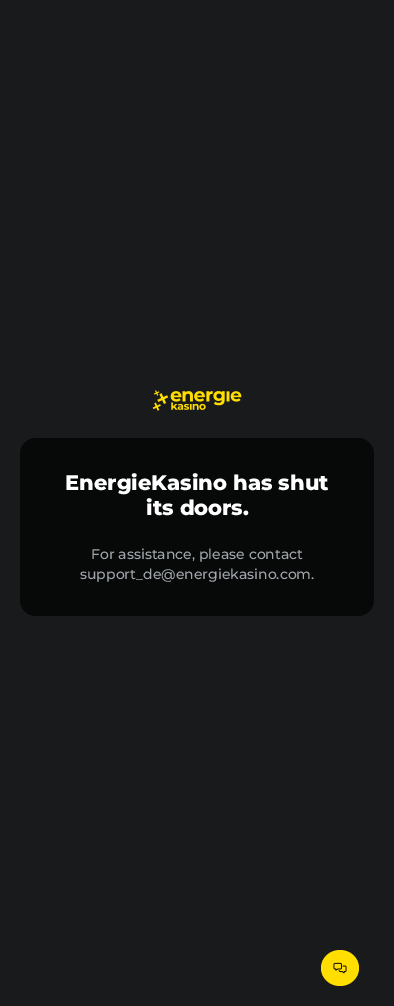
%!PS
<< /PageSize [394 1006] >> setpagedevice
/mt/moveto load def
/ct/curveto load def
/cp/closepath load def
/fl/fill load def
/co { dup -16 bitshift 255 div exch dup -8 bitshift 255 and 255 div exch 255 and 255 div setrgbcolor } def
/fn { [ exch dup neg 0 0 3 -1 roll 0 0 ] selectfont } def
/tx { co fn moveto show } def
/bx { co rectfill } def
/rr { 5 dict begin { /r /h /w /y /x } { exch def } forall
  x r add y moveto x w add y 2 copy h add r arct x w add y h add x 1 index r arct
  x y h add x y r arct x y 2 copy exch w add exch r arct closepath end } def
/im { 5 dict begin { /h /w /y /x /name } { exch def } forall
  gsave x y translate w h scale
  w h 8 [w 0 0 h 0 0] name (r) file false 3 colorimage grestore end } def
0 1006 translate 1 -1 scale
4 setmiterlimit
0 0 394 1006 16#181A1B bx
(media/1.raw) 152 390 90 21 im
16#070808 co
20 438 354 178 16 rr fl
16#FFDE00 co
340 950 mt 350.5 950 359 958 359 968 ct 359 978 350.5 986 340 986 ct 329.5 986 321 978 321 968 ct 321 958 329.5 950 340 950 ct cp fl
(media/2.raw) 333 962 14 12 im
(EnergieKasino has shut) 65 490 /Montserrat-ExtraBold 21 16#FFFFFF tx
(its doors.) 146 515 /Montserrat-ExtraBold 21 16#FFFFFF tx
(For assistance, please contact) 91 559 /Montserrat-Medium 14 16#A0A6AB tx
(support_de@energiekasino.com.) 80 579 /Montserrat-Medium 14 16#A0A6AB tx
showpage
